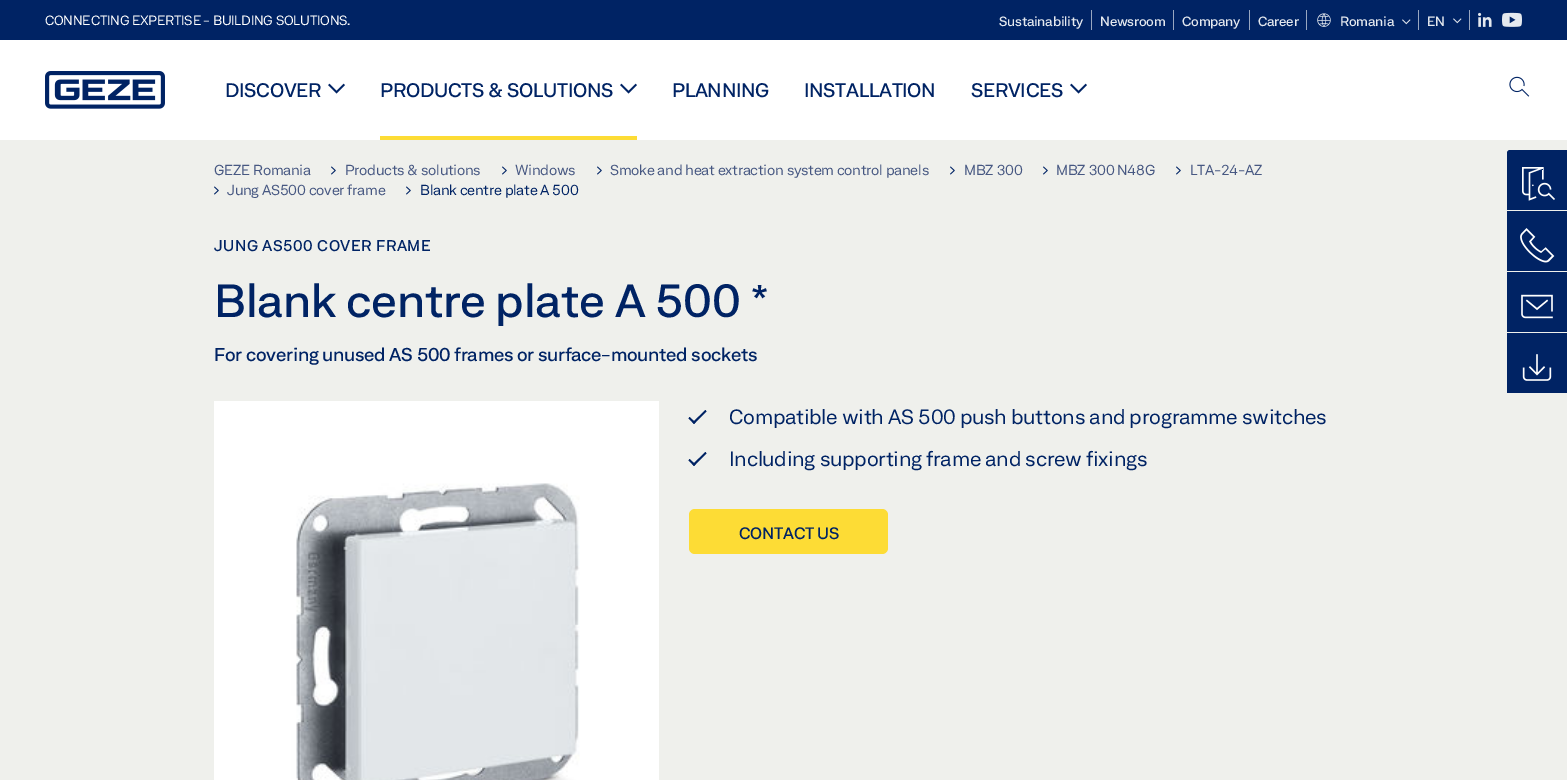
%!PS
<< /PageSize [1567 780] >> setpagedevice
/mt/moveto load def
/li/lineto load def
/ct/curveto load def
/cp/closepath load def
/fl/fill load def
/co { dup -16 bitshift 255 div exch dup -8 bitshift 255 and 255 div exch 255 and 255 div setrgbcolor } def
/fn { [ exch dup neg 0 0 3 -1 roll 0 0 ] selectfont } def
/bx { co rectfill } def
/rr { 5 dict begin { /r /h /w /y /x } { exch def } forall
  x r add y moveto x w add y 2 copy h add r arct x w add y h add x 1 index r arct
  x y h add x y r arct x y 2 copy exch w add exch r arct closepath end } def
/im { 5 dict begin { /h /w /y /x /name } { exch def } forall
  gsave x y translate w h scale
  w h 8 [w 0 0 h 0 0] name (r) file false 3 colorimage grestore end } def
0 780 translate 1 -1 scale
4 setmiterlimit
0 0 1567 780 16#EFF0EC bx
0 40 1567 100 16#FFFFFF bx
(media/1.raw) 45 71 120 38 im
0 0 1567 40 16#002364 bx
1091 10 1 20 16#99A7C1 bx
1173 10 1 20 16#99A7C1 bx
1249 10 1 20 16#99A7C1 bx
1306 10 1 20 16#99A7C1 bx
1418 10 1 20 16#99A7C1 bx
(media/2.raw) 1317 13 14 14 im
(media/3.raw) 1402 19 9 6 im
1469 10 1 20 16#99A7C1 bx
(media/3.raw) 1453 18 9 6 im
(media/4.raw) 1478 12 14 15 im
(media/5.raw) 1502 12 20 15 im
(media/6.raw) 328 83 17 11 im
380 136 257 4 16#FDDC35 bx
(media/6.raw) 620 83 17 11 im
(media/6.raw) 1070 83 17 11 im
(media/7.raw) 1509 76 21 21 im
(media/8.raw) 331 166 5 9 im
(media/8.raw) 502 166 5 9 im
(media/8.raw) 597 166 5 9 im
(media/8.raw) 950 166 5 9 im
(media/8.raw) 1043 166 5 9 im
(media/8.raw) 1176 166 5 9 im
(media/8.raw) 214 186 5 9 im
(media/8.raw) 406 186 5 9 im
(media/9.raw) 214 401 445 379 im
16#002364 co
692.5 422.5 mt 705.5 410 li 706.5 411.5 li 694 424 li cp fl
688.5 418.5 mt 689.5 417 li 695.5 422.5 li 694 424 li cp fl
692.5 464.5 mt 705.5 452 li 706.5 453.5 li 694 466 li cp fl
688.5 460.5 mt 689.5 459 li 695.5 464.5 li 694 466 li cp fl
16#FDDC35 co
689 509 199 45 6 rr fl
16#002364 co
1510 150 mt 1567 150 li 1567 210 li 1507 210 li 1507 153 li 1507 151.5 1508.5 150 1510 150 ct cp fl
(media/10.raw) 1522 167 33 34 im
1507 211 60 60 16#002364 bx
(media/11.raw) 1520 228 35 35 im
1507 272 60 60 16#002364 bx
(media/12.raw) 1521 294 32 25 im
1507 333 60 60 16#002364 bx
(media/13.raw) 1522 354 30 27 im
/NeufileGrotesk-Regular 13 fn
16#FFFFFF co
45 25 mt -.25 0 (CONNECTING EXPERTISE - BUILDING SOLUTIONS.) ashow
/NeufileGrotesk-Medium 13 fn
16#E5E9EF co
999 26 mt -.25 0 (Sustainability) ashow
1100 26 mt -.25 0 (Newsroom) ashow
1182 26 mt -.25 0 (Company) ashow
1258 26 mt -.25 0 (Career) ashow
1340 26 mt -.25 0 (Romania) ashow
1427 26 mt -.25 0 (EN) ashow
/NeufileGrotesk-Medium 19 fn
16#002364 co
225 97 mt -.25 0 (DISCOVER) ashow
380 97 mt -.25 0 (PRODUCTS & SOLUTIONS) ashow
672 97 mt -.25 0 (PLANNING) ashow
804 97 mt -.25 0 (INSTALLATION) ashow
971 97 mt -.25 0 (SERVICES) ashow
/NeufileGrotesk-Regular 14 fn
16#475882 co
214 175 mt -.25 0 (GEZE Romania) ashow
345 175 mt -.25 0 (Products & solutions) ashow
515 175 mt -.25 0 (Windows) ashow
610 175 mt -.25 0 (Smoke and heat extraction system control panels) ashow
964 175 mt -.25 0 (MBZ 300) ashow
1056 175 mt -.25 0 (MBZ 300 N48G) ashow
1190 175 mt -.25 0 (LTA-24-AZ) ashow
227 195 mt -.25 0 (Jung AS500 cover frame) ashow
16#002364 co
420 195 mt -.25 0 (Blank centre plate A 500) ashow
/NeufileGrotesk-Medium 15 fn
214 251 mt .5 0 (JUNG AS500 COVER FRAME) ashow
/NeufileGrotesk-Medium 45 fn
214 317 mt -.25 0 (Blank centre plate A 500 *) ashow
/NeufileGrotesk-Medium 18 fn
214 361 mt -.25 0 (For covering unused AS 500 frames or surface-mounted sockets) ashow
/NeufileGrotesk-Regular 20 fn
729 424 mt -.25 0 (Compatible with AS 500 push buttons and programme switches) ashow
729 466 mt -.25 0 (Including supporting frame and screw fixings) ashow
/NeufileGrotesk-Medium 16 fn
739 539 mt -.25 0 (CONTACT US) ashow
showpage
